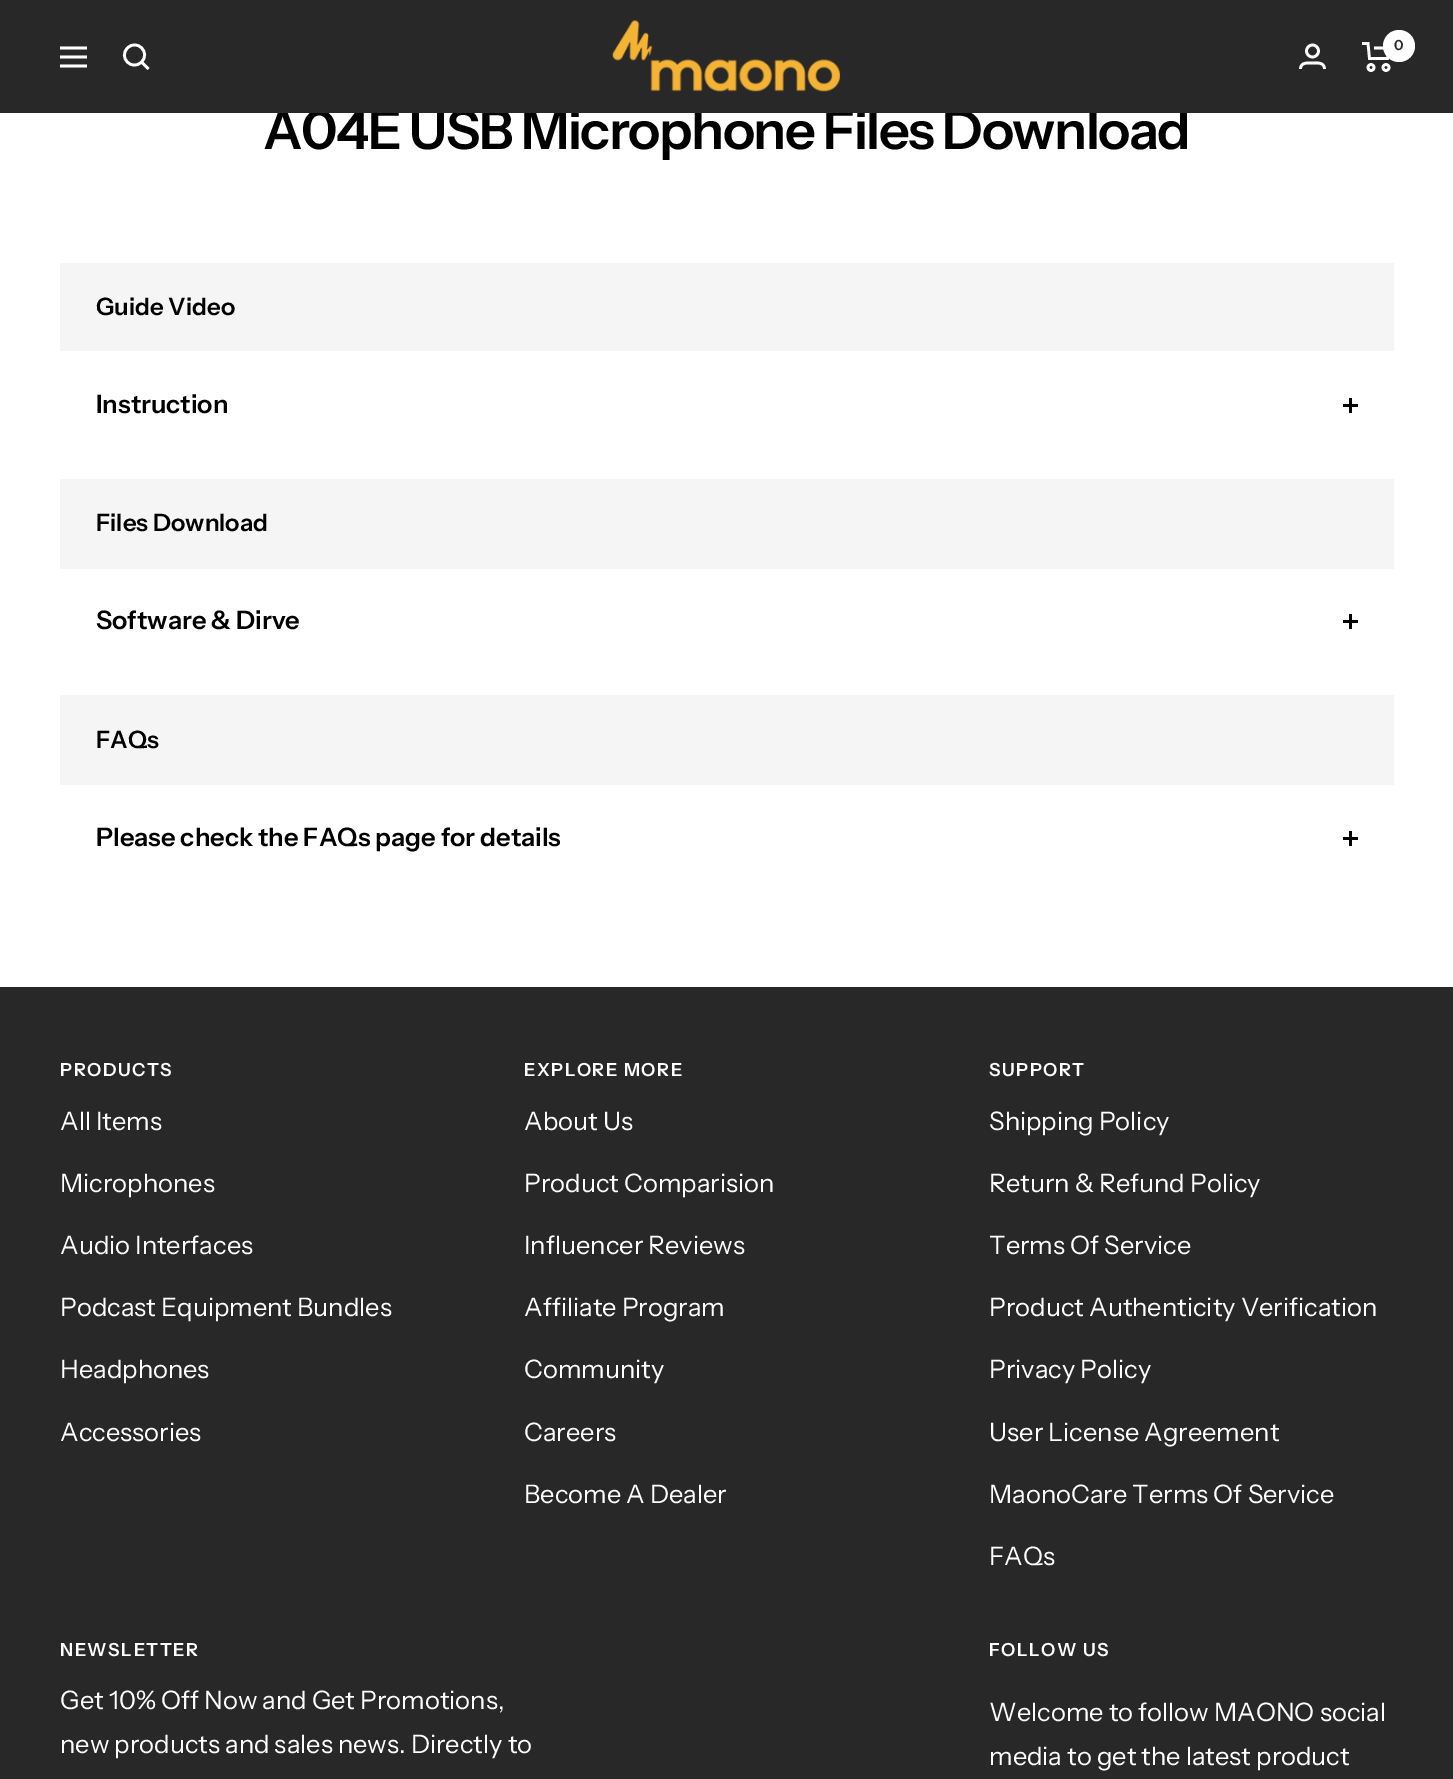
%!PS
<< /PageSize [1453 1779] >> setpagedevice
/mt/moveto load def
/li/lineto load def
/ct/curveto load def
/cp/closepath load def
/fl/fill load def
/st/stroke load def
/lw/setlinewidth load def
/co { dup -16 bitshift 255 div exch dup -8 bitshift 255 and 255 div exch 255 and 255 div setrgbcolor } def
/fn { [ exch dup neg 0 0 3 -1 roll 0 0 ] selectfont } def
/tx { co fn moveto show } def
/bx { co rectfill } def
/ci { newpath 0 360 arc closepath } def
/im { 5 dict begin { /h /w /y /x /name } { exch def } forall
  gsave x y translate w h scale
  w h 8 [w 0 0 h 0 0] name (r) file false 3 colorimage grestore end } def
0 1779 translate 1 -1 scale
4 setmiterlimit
0 0 1453 1779 16#FFFFFF bx
60 263 1334 88 16#F5F5F5 bx
1349 398 3 15 16#000000 bx
1343 404 15 3 16#000000 bx
60 479 1334 90 16#F5F5F5 bx
1349 614 3 15 16#000000 bx
1343 620 15 3 16#000000 bx
60 695 1334 90 16#F5F5F5 bx
1349 831 3 15 16#000000 bx
1343 837 15 3 16#000000 bx
0 987 1453 792 16#282828 bx
/InstrumentSans-SemiBold 54 fn
16#000000 co
263 149 mt -1.5 0 (A04E USB Microphone Files Download) ashow
0 0 1453 113 16#282828 bx
16#FFFFFF co
2.7 lw
1362 43.5 mt 1368 43.5 li 1369.5 58.5 li 1387.5 58.5 li 1390.5 48 li 1374 48 li st
1399 46 16 ci fl
(0) 1394 50 /InstrumentSans-SemiBold 14 16#282828 tx
16#FFFFFF co
1386 67.5 3 ci st
1371 67.5 3 ci st
1300.5 69 mt 1300.5 62 1308 63 1312.5 63 ct 1317 63 1324.5 62 1324.5 69 ct st
1312.5 51 6 ci st
(media/1.raw) 612 20 228 72 im
141.5 62 mt 151 52.5 137 38.5 127.5 48 ct 118 57.5 132 71.5 141.5 62 ct cp 141.5 62 mt 148.5 69 li st
60 48 mt 87 48 li 60 66 mt 87 66 li cp 60 57 mt 87 57 li cp st
(Guide Video) 96 315 /InstrumentSans-SemiBold 24 16#000000 tx
(Instruction) 96 413 /InstrumentSans-SemiBold 25.5 16#000000 tx
(Files Download) 96 531 /InstrumentSans-SemiBold 24 16#000000 tx
(Software & Dirve) 96 629 /InstrumentSans-SemiBold 25.5 16#000000 tx
(FAQs) 96 748 /InstrumentSans-SemiBold 24 16#000000 tx
(Please check the FAQs page for details) 96 846 /InstrumentSans-SemiBold 25.5 16#000000 tx
/InstrumentSans-SemiBold 18 fn
16#FFFFFF co
60 1076 mt 1.5 0 (PRODUCTS) ashow
(All Items) 60 1130 /InstrumentSans-Regular 25.5 16#FFFFFF tx
(Microphones) 60 1192 /InstrumentSans-Regular 25.5 16#FFFFFF tx
(Audio Interfaces) 60 1254 /InstrumentSans-Regular 25.5 16#FFFFFF tx
(Podcast Equipment Bundles) 60 1316 /InstrumentSans-Regular 25.5 16#FFFFFF tx
(Headphones) 60 1378 /InstrumentSans-Regular 25.5 16#FFFFFF tx
(Accessories) 60 1441 /InstrumentSans-Regular 25.5 16#FFFFFF tx
/InstrumentSans-SemiBold 18 fn
524 1076 mt 1.5 0 (EXPLORE MORE) ashow
(About Us) 524 1130 /InstrumentSans-Regular 25.5 16#FFFFFF tx
(Product Comparision) 524 1192 /InstrumentSans-Regular 25.5 16#FFFFFF tx
(Influencer Reviews) 524 1254 /InstrumentSans-Regular 25.5 16#FFFFFF tx
(Affiliate Program) 524 1316 /InstrumentSans-Regular 25.5 16#FFFFFF tx
(Community) 524 1378 /InstrumentSans-Regular 25.5 16#FFFFFF tx
(Careers) 524 1441 /InstrumentSans-Regular 25.5 16#FFFFFF tx
(Become A Dealer) 524 1503 /InstrumentSans-Regular 25.5 16#FFFFFF tx
/InstrumentSans-SemiBold 18 fn
989 1076 mt 1.5 0 (SUPPORT) ashow
(Shipping Policy) 989 1130 /InstrumentSans-Regular 25.5 16#FFFFFF tx
(Return & Refund Policy) 989 1192 /InstrumentSans-Regular 25.5 16#FFFFFF tx
(Terms Of Service) 989 1254 /InstrumentSans-Regular 25.5 16#FFFFFF tx
(Product Authenticity Verification) 989 1316 /InstrumentSans-Regular 25.5 16#FFFFFF tx
(Privacy Policy) 989 1378 /InstrumentSans-Regular 25.5 16#FFFFFF tx
(User License Agreement) 989 1441 /InstrumentSans-Regular 25.5 16#FFFFFF tx
(MaonoCare Terms Of Service) 989 1503 /InstrumentSans-Regular 25.5 16#FFFFFF tx
(FAQs) 989 1565 /InstrumentSans-Regular 25.5 16#FFFFFF tx
/InstrumentSans-SemiBold 18 fn
60 1656 mt 1.5 0 (NEWSLETTER) ashow
(Get 10% Off Now and Get Promotions,) 60 1709 /InstrumentSans-Regular 25.5 16#FFFFFF tx
(new products and sales news. Directly to) 60 1753 /InstrumentSans-Regular 25.5 16#FFFFFF tx
/InstrumentSans-SemiBold 18 fn
989 1656 mt 1.5 0 (FOLLOW US) ashow
(Welcome to follow MAONO social) 989 1721 /InstrumentSans-Regular 25.5 16#FFFFFF tx
(media to get the latest product) 989 1765 /InstrumentSans-Regular 25.5 16#FFFFFF tx
showpage
